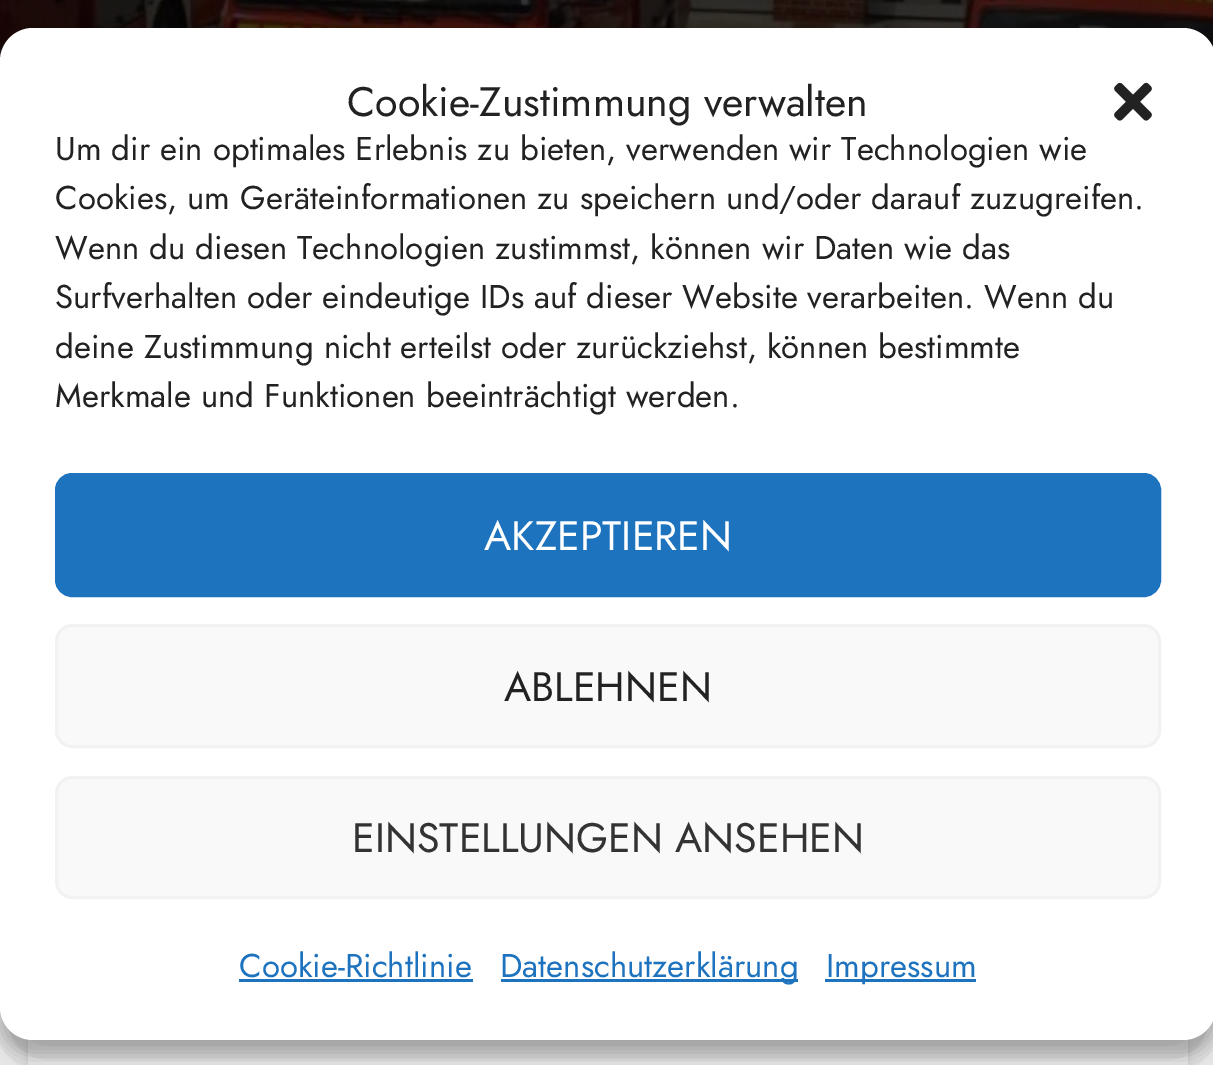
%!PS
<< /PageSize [1213 1065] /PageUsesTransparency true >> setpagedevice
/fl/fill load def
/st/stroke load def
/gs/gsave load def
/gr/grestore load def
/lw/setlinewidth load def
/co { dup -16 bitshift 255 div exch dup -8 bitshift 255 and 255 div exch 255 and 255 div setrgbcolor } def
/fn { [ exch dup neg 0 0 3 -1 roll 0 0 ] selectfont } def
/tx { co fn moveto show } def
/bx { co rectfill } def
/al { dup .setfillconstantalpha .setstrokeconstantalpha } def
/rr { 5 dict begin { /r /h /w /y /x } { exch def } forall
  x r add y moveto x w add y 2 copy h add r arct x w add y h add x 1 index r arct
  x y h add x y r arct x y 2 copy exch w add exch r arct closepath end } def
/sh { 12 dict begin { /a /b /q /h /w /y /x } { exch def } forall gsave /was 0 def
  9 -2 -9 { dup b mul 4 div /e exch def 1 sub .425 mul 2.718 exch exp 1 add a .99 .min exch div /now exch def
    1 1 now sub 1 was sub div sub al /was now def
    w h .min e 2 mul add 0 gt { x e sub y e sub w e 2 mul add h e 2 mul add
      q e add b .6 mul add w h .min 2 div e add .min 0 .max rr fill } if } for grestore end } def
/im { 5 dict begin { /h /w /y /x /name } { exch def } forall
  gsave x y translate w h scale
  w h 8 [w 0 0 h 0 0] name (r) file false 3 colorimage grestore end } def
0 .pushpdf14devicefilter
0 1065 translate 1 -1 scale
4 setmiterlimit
0 0 1213 1065 16#F5F5F5 bx
(media/1.raw) 0 0 1213 61 im
16#000000 co
28 729 1160 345 0 3 .08 sh
28 1039 1160 26 16#FFFFFF bx
16#000000 co
0 44 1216 1012 33 8 .23 sh
0 55 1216 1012 33 27.5 .19 sh
16#FFFFFF co
0 28 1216 1012 33 rr fl
(media/2.raw) 1114 82 38 39 im
16#1E73BE co
56.5 474.5 1103 121 15.5 rr gs fl gr
3 lw
st
16#F9F9F9 co
56.5 625.5 1103 121 15.5 rr gs fl gr
16#F2F2F2 co
st
16#F9F9F9 co
56.5 777.5 1103 120 15.5 rr gs fl gr
16#F2F2F2 co
st
239 979 234 3 16#1E73BE bx
501 979 297 3 16#1E73BE bx
825 979 151 3 16#1E73BE bx
(Cookie-Zustimmung verwalten) 347 116 /Jost-Regular 41.25 16#222222 tx
(Um dir ein optimales Erlebnis zu bieten, verwenden wir Technologien wie) 55 160 /Jost-Regular 33 16#222222 tx
(Cookies, um Geräteinformationen zu speichern und/oder darauf zuzugreifen.) 55 209 /Jost-Regular 33 16#222222 tx
(Wenn du diesen Technologien zustimmst, können wir Daten wie das) 55 259 /Jost-Regular 33 16#222222 tx
(Surfverhalten oder eindeutige IDs auf dieser Website verarbeiten. Wenn du) 55 308 /Jost-Regular 33 16#222222 tx
(deine Zustimmung nicht erteilst oder zurückziehst, können bestimmte) 55 358 /Jost-Regular 33 16#222222 tx
(Merkmale und Funktionen beeinträchtigt werden.) 55 407 /Jost-Regular 33 16#222222 tx
(AKZEPTIEREN) 484 550 /Jost-Regular 41.25 16#FFFFFF tx
(ABLEHNEN) 504 701 /Jost-Regular 41.25 16#222222 tx
(EINSTELLUNGEN ANSEHEN) 352 852 /Jost-Regular 41.25 16#333333 tx
(Cookie-Richtlinie) 239 977 /Jost-Regular 33 16#1E73BE tx
(Datenschutzerklärung) 500 977 /Jost-Regular 33 16#1E73BE tx
(Impressum) 826 977 /Jost-Regular 33 16#1E73BE tx
.poppdf14devicefilter showpage
